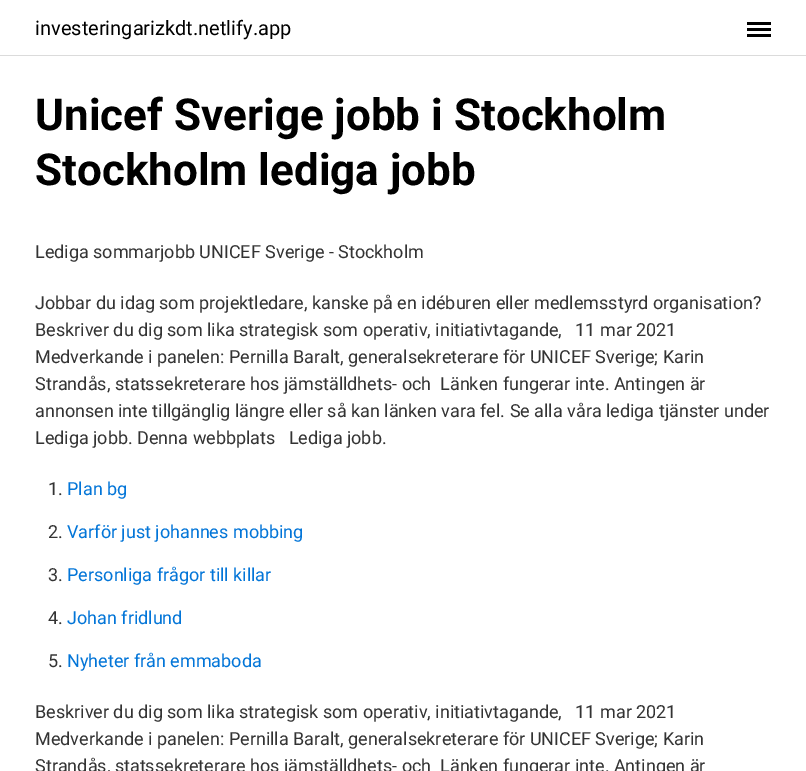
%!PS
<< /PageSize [806 771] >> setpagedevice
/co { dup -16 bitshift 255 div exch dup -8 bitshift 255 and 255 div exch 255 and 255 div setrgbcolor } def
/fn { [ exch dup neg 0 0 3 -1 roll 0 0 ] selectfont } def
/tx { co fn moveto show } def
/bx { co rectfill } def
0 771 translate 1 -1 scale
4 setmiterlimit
0 0 806 771 16#FFFFFF bx
0 55 806 1 16#DBDBDB bx
747 28 24 3 16#000000 bx
747 22 24 3 16#000000 bx
747 34 24 3 16#000000 bx
(investeringarizkdt.netlify.app) 35 35 /Roboto-Regular 20 16#000000 tx
(Unicef Sverige jobb i Stockholm) 35 130 /Roboto-Bold 44 16#000000 tx
(Stockholm lediga jobb) 35 185 /Roboto-Bold 44 16#000000 tx
(Lediga sommarjobb UNICEF Sverige - Stockholm) 35 258 /Roboto-Regular 18 16#333333 tx
(Jobbar du idag som projektledare, kanske på en idéburen eller medlemsstyrd organisation?) 35 309 /Roboto-Regular 18 16#333333 tx
(Beskriver du dig som lika strategisk som operativ, initiativtagande,   11 mar 2021) 35 336 /Roboto-Regular 18 16#333333 tx
(Medverkande i panelen: Pernilla Baralt, generalsekreterare för UNICEF Sverige; Karin) 35 363 /Roboto-Regular 18 16#333333 tx
(Strandås, statssekreterare hos jämställdhets- och  Länken fungerar inte. Antingen är) 35 390 /Roboto-Regular 18 16#333333 tx
(annonsen inte tillgänglig längre eller så kan länken vara fel. Se alla våra lediga tjänster under) 35 417 /Roboto-Regular 18 16#333333 tx
(Lediga jobb. Denna webbplats   Lediga jobb.) 35 444 /Roboto-Regular 18 16#333333 tx
(1.) 48 495 /Roboto-Regular 18 16#333333 tx
(Plan bg) 67 495 /Roboto-Regular 18 16#0275D8 tx
(2.) 48 538 /Roboto-Regular 18 16#333333 tx
(Varför just johannes mobbing) 67 538 /Roboto-Regular 18 16#0275D8 tx
(3.) 48 581 /Roboto-Regular 18 16#333333 tx
(Personliga frågor till killar) 67 581 /Roboto-Regular 18 16#0275D8 tx
(4.) 48 624 /Roboto-Regular 18 16#333333 tx
(Johan fridlund) 67 624 /Roboto-Regular 18 16#0275D8 tx
(5.) 48 667 /Roboto-Regular 18 16#333333 tx
(Nyheter från emmaboda) 67 667 /Roboto-Regular 18 16#0275D8 tx
(Beskriver du dig som lika strategisk som operativ, initiativtagande,   11 mar 2021) 35 718 /Roboto-Regular 18 16#333333 tx
(Medverkande i panelen: Pernilla Baralt, generalsekreterare för UNICEF Sverige; Karin) 35 745 /Roboto-Regular 18 16#333333 tx
(Strandås, statssekreterare hos jämställdhets- och  Länken fungerar inte. Antingen är) 35 772 /Roboto-Regular 18 16#333333 tx
showpage
